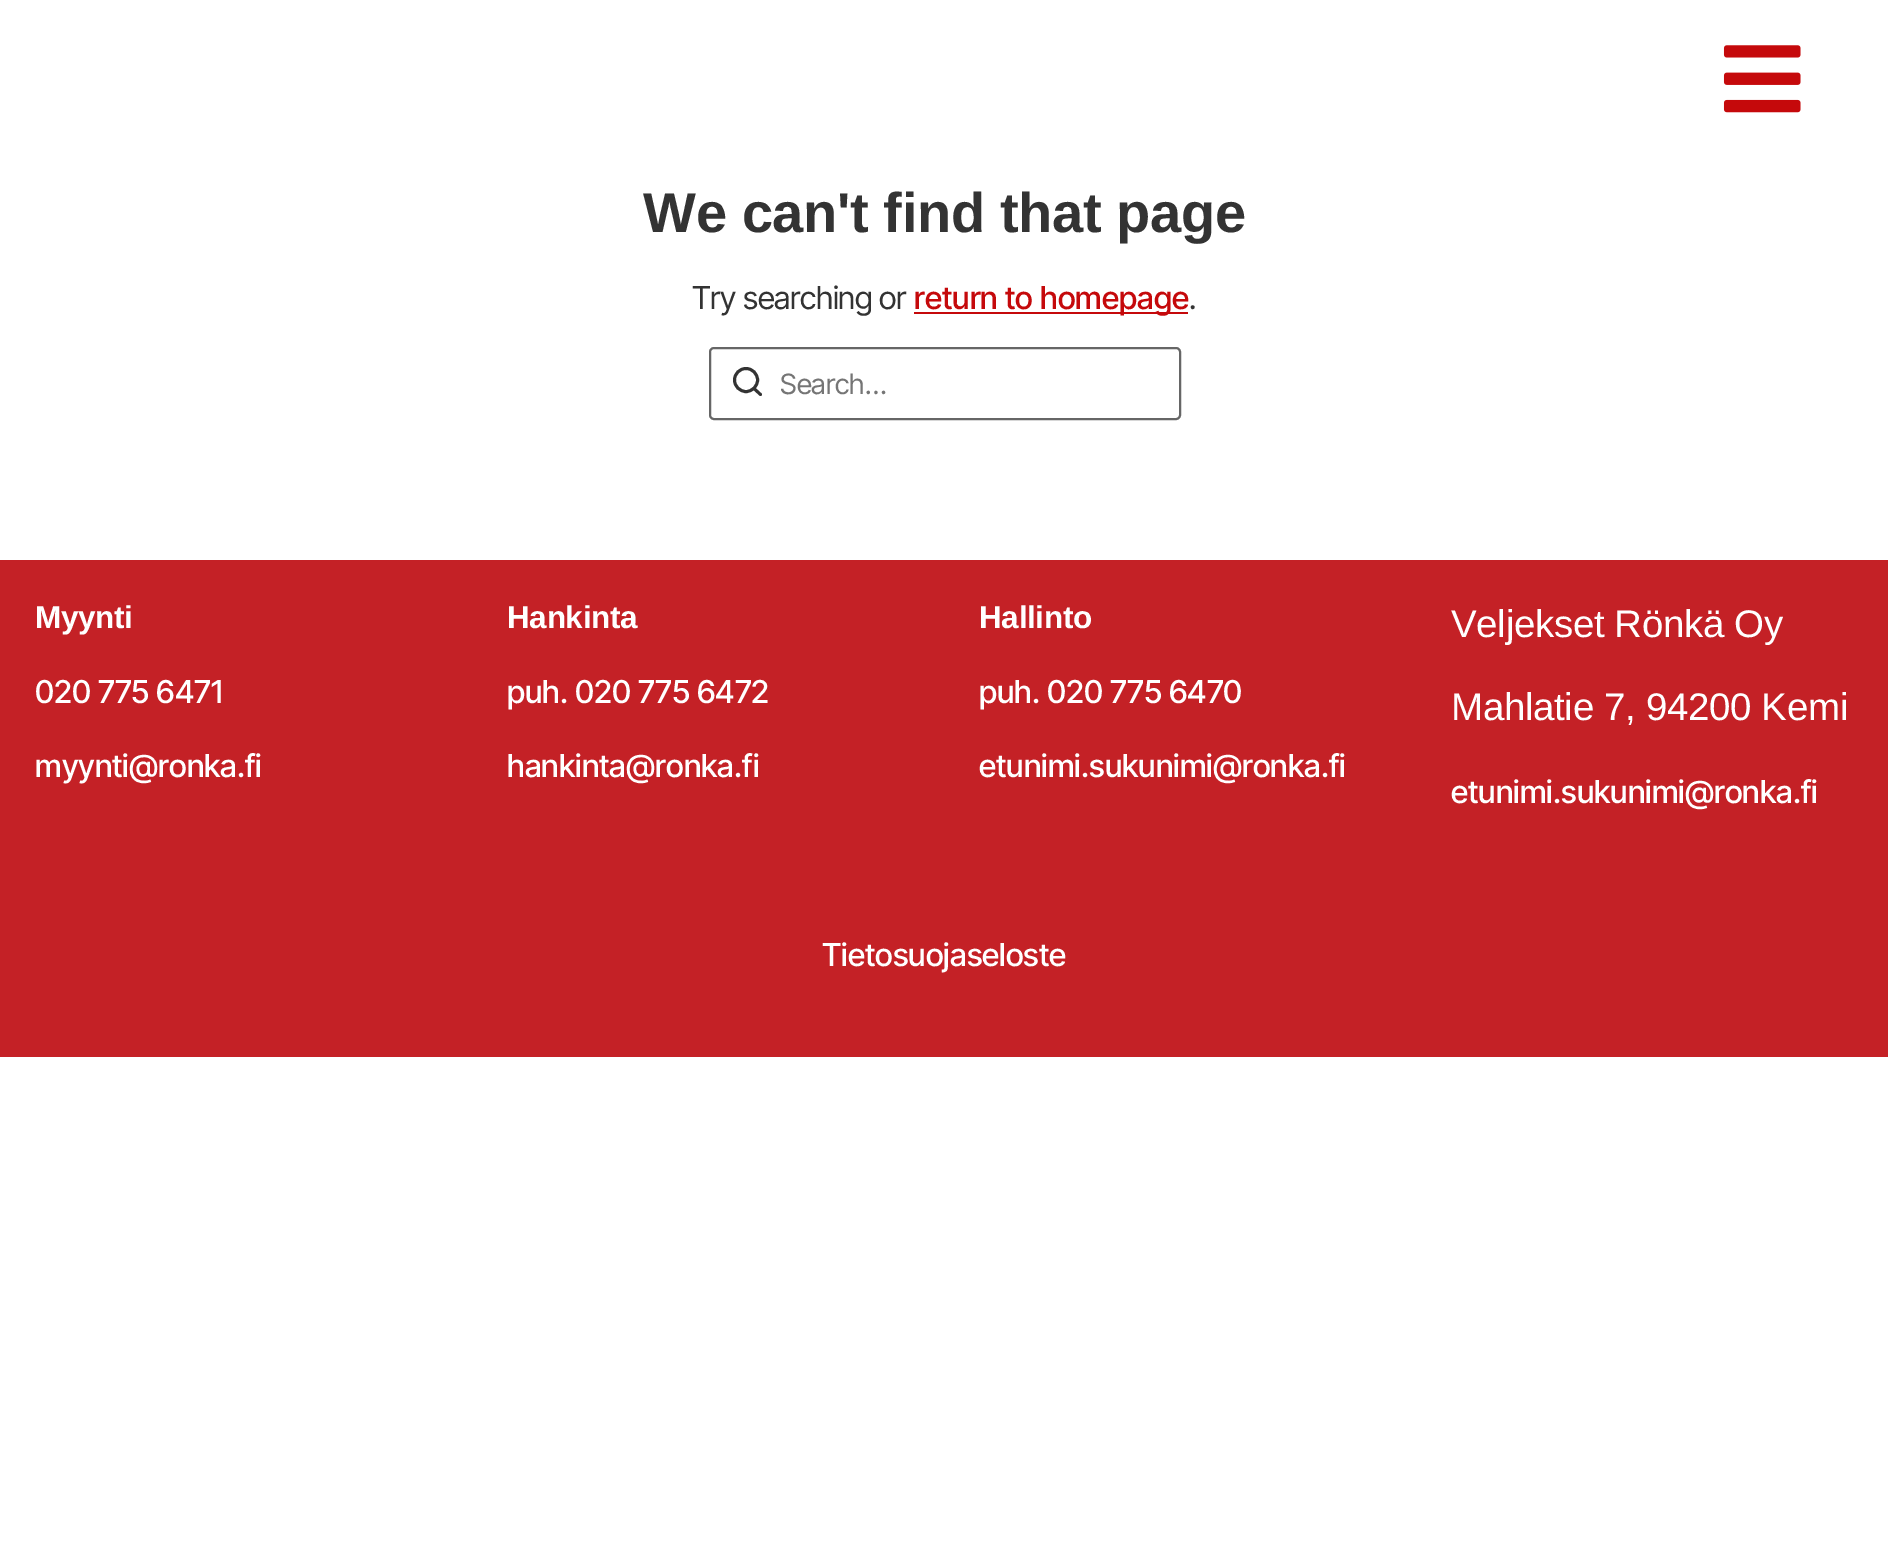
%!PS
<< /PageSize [1888 1542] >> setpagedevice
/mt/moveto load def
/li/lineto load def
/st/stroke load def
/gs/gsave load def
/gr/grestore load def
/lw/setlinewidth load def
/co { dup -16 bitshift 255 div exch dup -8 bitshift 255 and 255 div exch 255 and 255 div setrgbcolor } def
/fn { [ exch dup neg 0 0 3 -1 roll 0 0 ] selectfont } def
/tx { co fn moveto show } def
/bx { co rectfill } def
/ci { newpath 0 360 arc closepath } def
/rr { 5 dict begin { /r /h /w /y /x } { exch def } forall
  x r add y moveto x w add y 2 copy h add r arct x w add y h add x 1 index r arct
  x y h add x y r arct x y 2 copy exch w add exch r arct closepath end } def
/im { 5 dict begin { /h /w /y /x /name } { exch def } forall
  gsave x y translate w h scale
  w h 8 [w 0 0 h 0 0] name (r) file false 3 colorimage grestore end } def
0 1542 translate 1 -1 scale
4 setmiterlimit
0 0 1888 1542 16#FFFFFF bx
(media/1.raw) 1723 45 78 68 im
914 312 274 2 16#C5090B bx
16#666666 co
2 lw
710 348 470 71 4 rr st
16#333333 co
2.9 lw
746 380 11.5 ci st
1 setlinecap
1 setlinejoin
760.5 394.5 mt 754 388.5 li st
0 560 1888 497 16#C42126 bx
/LiberationSans-Bold 56 fn
16#333333 co
643 232 mt -.35 0 (We can't find that page) ashow
/InterTight-Regular 31.5 fn
692 309 mt -.35 0 (Try searching or) ashow
(return to homepage) 914 309 /InterTight-Medium 31.5 16#C5090B tx
/InterTight-Regular 31.5 fn
16#333333 co
1189 309 mt -.35 0 (.) ashow
gs
781 366 344 35 rectclip
(Search…) 780 394 /InterTight-Regular 28 16#757575 tx
gr
/LiberationSans-Bold 31.5 fn
16#FFFFFF co
35 628 mt -.35 0 (Myynti) ashow
(020 775 6471) 35 703 /InterTight-Medium 31.5 16#FFFFFF tx
(myynti@ronka.fi) 35 777 /InterTight-Medium 31.5 16#FFFFFF tx
/LiberationSans-Bold 31.5 fn
507 628 mt -.35 0 (Hankinta) ashow
(puh. 020 775 6472) 507 703 /InterTight-Medium 31.5 16#FFFFFF tx
(hankinta@ronka.fi) 507 777 /InterTight-Medium 31.5 16#FFFFFF tx
/LiberationSans-Bold 31.5 fn
979 628 mt -.35 0 (Hallinto) ashow
(puh. 020 775 6470) 979 703 /InterTight-Medium 31.5 16#FFFFFF tx
(etunimi.sukunimi@ronka.fi) 979 777 /InterTight-Medium 31.5 16#FFFFFF tx
/LiberationSans-Regular 38.5 fn
1451 637 mt -.35 0 (Veljekset Rönkä Oy) ashow
1451 720 mt -.35 0 (Mahlatie 7, 94200 Kemi) ashow
(etunimi.sukunimi@ronka.fi) 1451 803 /InterTight-Medium 31.5 16#FFFFFF tx
(Tietosuojaseloste) 822 966 /InterTight-Medium 31.5 16#FFFFFF tx
showpage
